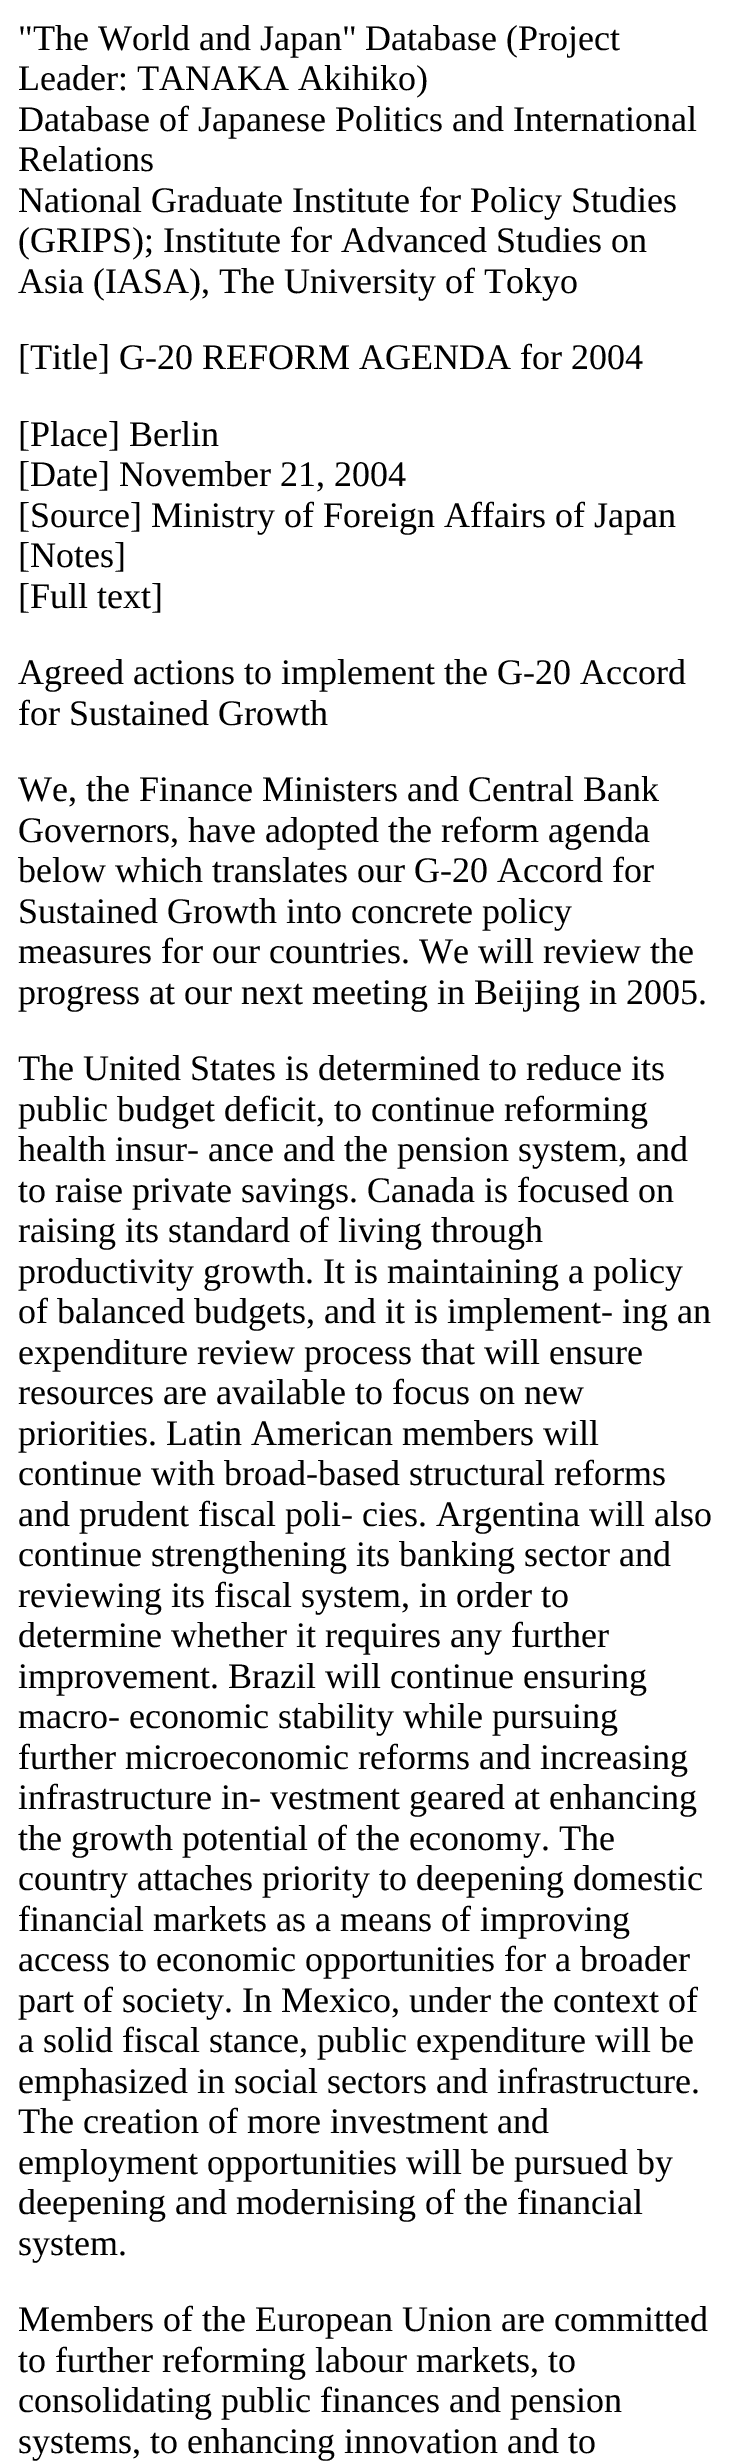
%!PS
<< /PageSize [731 2462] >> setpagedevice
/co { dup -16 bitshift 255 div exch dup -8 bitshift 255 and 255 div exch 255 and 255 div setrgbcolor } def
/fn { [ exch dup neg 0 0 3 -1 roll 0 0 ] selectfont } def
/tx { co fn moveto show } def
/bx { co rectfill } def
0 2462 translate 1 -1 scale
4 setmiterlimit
0 0 731 2462 16#FFFFFF bx
("The World and Japan" Database \(Project) 18 50 /LiberationSerif-Regular 36 16#000000 tx
(Leader: TANAKA Akihiko\)) 18 90 /LiberationSerif-Regular 36 16#000000 tx
(Database of Japanese Politics and International) 18 131 /LiberationSerif-Regular 36 16#000000 tx
(Relations) 18 171 /LiberationSerif-Regular 36 16#000000 tx
(National Graduate Institute for Policy Studies) 18 212 /LiberationSerif-Regular 36 16#000000 tx
(\(GRIPS\); Institute for Advanced Studies on) 18 252 /LiberationSerif-Regular 36 16#000000 tx
(Asia \(IASA\), The University of Tokyo) 18 293 /LiberationSerif-Regular 36 16#000000 tx
([Title] G-20 REFORM AGENDA for 2004) 18 369 /LiberationSerif-Regular 36 16#000000 tx
([Place] Berlin) 18 446 /LiberationSerif-Regular 36 16#000000 tx
([Date] November 21, 2004) 18 486 /LiberationSerif-Regular 36 16#000000 tx
([Source] Ministry of Foreign Affairs of Japan) 18 527 /LiberationSerif-Regular 36 16#000000 tx
([Notes]) 18 567 /LiberationSerif-Regular 36 16#000000 tx
([Full text]) 18 608 /LiberationSerif-Regular 36 16#000000 tx
(Agreed actions to implement the G-20 Accord) 18 684 /LiberationSerif-Regular 36 16#000000 tx
(for Sustained Growth) 18 725 /LiberationSerif-Regular 36 16#000000 tx
(We, the Finance Ministers and Central Bank) 18 801 /LiberationSerif-Regular 36 16#000000 tx
(Governors, have adopted the reform agenda) 18 842 /LiberationSerif-Regular 36 16#000000 tx
(below which translates our G-20 Accord for) 18 882 /LiberationSerif-Regular 36 16#000000 tx
(Sustained Growth into concrete policy) 18 923 /LiberationSerif-Regular 36 16#000000 tx
(measures for our countries. We will review the) 18 963 /LiberationSerif-Regular 36 16#000000 tx
(progress at our next meeting in Beijing in 2005.) 18 1004 /LiberationSerif-Regular 36 16#000000 tx
(The United States is determined to reduce its) 18 1080 /LiberationSerif-Regular 36 16#000000 tx
(public budget deficit, to continue reforming) 18 1121 /LiberationSerif-Regular 36 16#000000 tx
(health insur- ance and the pension system, and) 18 1161 /LiberationSerif-Regular 36 16#000000 tx
(to raise private savings. Canada is focused on) 18 1202 /LiberationSerif-Regular 36 16#000000 tx
(raising its standard of living through) 18 1242 /LiberationSerif-Regular 36 16#000000 tx
(productivity growth. It is maintaining a policy) 18 1283 /LiberationSerif-Regular 36 16#000000 tx
(of balanced budgets, and it is implement- ing an) 18 1323 /LiberationSerif-Regular 36 16#000000 tx
(expenditure review process that will ensure) 18 1364 /LiberationSerif-Regular 36 16#000000 tx
(resources are available to focus on new) 18 1404 /LiberationSerif-Regular 36 16#000000 tx
(priorities. Latin American members will) 18 1445 /LiberationSerif-Regular 36 16#000000 tx
(continue with broad-based structural reforms) 18 1485 /LiberationSerif-Regular 36 16#000000 tx
(and prudent fiscal poli- cies. Argentina will also) 18 1526 /LiberationSerif-Regular 36 16#000000 tx
(continue strengthening its banking sector and) 18 1566 /LiberationSerif-Regular 36 16#000000 tx
(reviewing its fiscal system, in order to) 18 1607 /LiberationSerif-Regular 36 16#000000 tx
(determine whether it requires any further) 18 1647 /LiberationSerif-Regular 36 16#000000 tx
(improvement. Brazil will continue ensuring) 18 1688 /LiberationSerif-Regular 36 16#000000 tx
(macro- economic stability while pursuing) 18 1728 /LiberationSerif-Regular 36 16#000000 tx
(further microeconomic reforms and increasing) 18 1769 /LiberationSerif-Regular 36 16#000000 tx
(infrastructure in- vestment geared at enhancing) 18 1809 /LiberationSerif-Regular 36 16#000000 tx
(the growth potential of the economy. The) 18 1850 /LiberationSerif-Regular 36 16#000000 tx
(country attaches priority to deepening domestic) 18 1890 /LiberationSerif-Regular 36 16#000000 tx
(financial markets as a means of improving) 18 1931 /LiberationSerif-Regular 36 16#000000 tx
(access to economic opportunities for a broader) 18 1971 /LiberationSerif-Regular 36 16#000000 tx
(part of society. In Mexico, under the context of) 18 2012 /LiberationSerif-Regular 36 16#000000 tx
(a solid fiscal stance, public expenditure will be) 18 2052 /LiberationSerif-Regular 36 16#000000 tx
(emphasized in social sectors and infrastructure.) 18 2093 /LiberationSerif-Regular 36 16#000000 tx
(The creation of more investment and) 18 2133 /LiberationSerif-Regular 36 16#000000 tx
(employment opportunities will be pursued by) 18 2174 /LiberationSerif-Regular 36 16#000000 tx
(deepening and modernising of the financial) 18 2214 /LiberationSerif-Regular 36 16#000000 tx
(system.) 18 2255 /LiberationSerif-Regular 36 16#000000 tx
(Members of the European Union are committed) 18 2331 /LiberationSerif-Regular 36 16#000000 tx
(to further reforming labour markets, to) 18 2372 /LiberationSerif-Regular 36 16#000000 tx
(consolidating public finances and pension) 18 2412 /LiberationSerif-Regular 36 16#000000 tx
(systems, to enhancing innovation and to) 18 2453 /LiberationSerif-Regular 36 16#000000 tx
showpage
